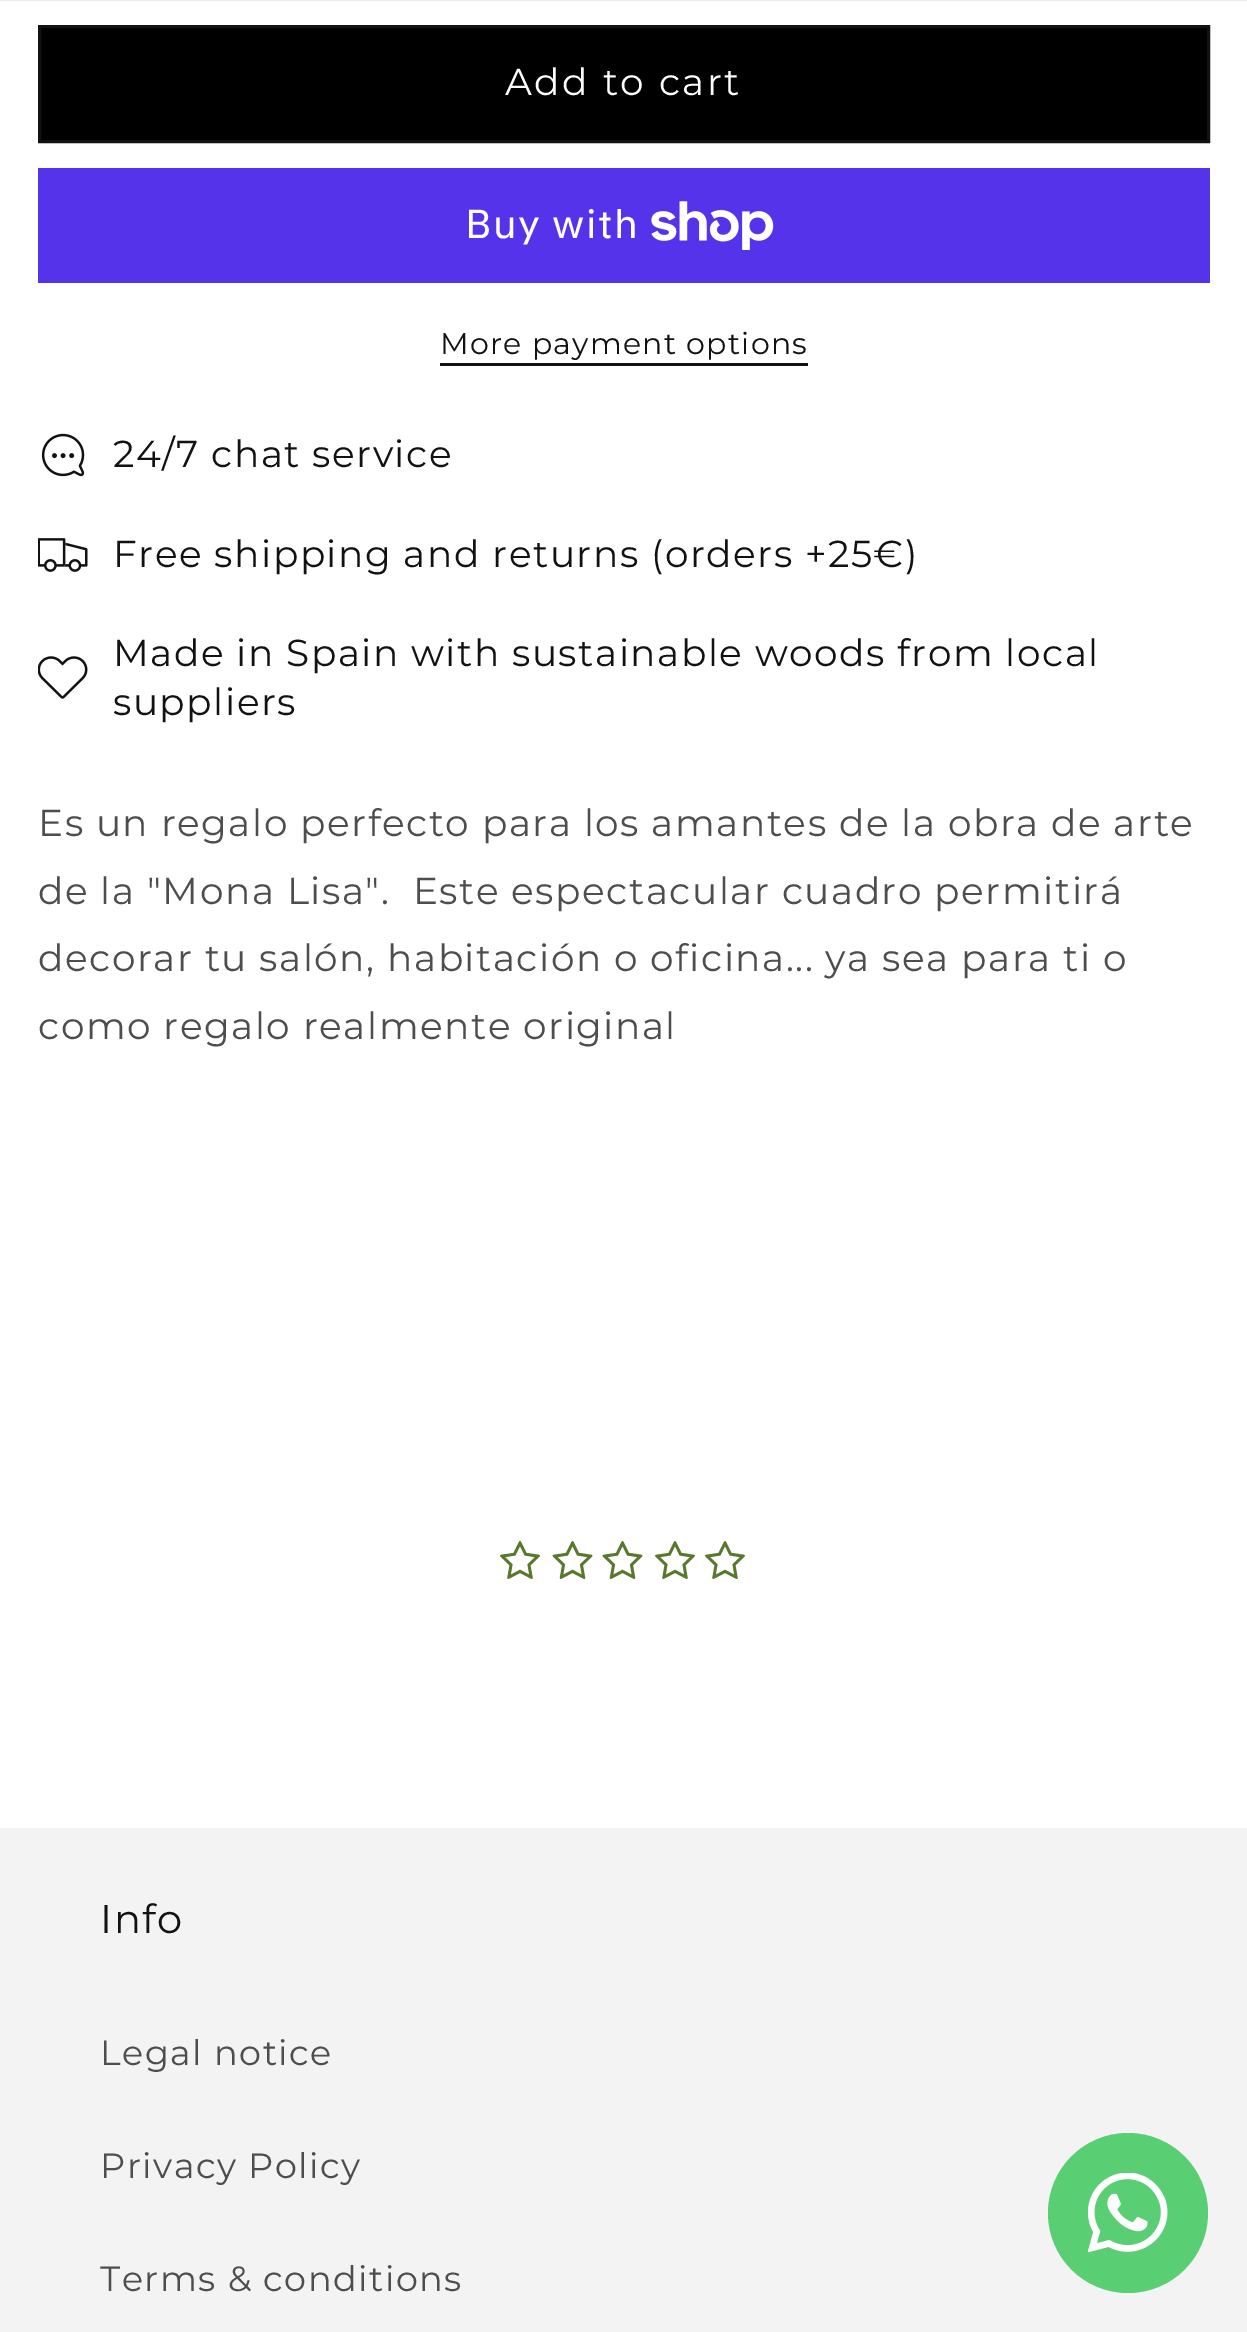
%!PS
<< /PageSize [1247 2332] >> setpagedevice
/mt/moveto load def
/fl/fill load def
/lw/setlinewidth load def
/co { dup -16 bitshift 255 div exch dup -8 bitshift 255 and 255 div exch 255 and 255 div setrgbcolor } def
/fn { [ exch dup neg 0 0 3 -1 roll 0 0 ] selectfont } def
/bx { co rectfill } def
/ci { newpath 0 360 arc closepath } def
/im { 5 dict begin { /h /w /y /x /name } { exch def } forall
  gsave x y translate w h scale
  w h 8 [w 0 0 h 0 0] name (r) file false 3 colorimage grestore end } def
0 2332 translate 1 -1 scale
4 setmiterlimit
0 0 1247 2332 16#FFFFFF bx
0 0 1247 1 16#ECECEC bx
41 28 1166 112 16#000000 bx
16#121212 co
3 lw
39.5 26.5 1169 115 rectstroke
38 168 1172 115 16#5433EB bx
(media/1.raw) 651 201 123 49 im
440 363 368 3 16#121212 bx
(media/2.raw) 41 433 44 44 im
(media/3.raw) 38 538 50 34 im
(media/4.raw) 38 656 50 43 im
(media/5.raw) 500 1541 40 38 im
(media/6.raw) 552 1541 41 38 im
(media/6.raw) 602 1541 41 38 im
(media/5.raw) 655 1541 40 38 im
(media/5.raw) 705 1541 40 38 im
0 1828 1247 504 16#F3F3F3 bx
16#59CE72 co
1128 2213 80 ci fl
(media/7.raw) 1088 2173 80 80 im
/Montserrat-Thin 37.5 fn
16#FFFFFF co
505 95 mt 2.5 0 (Add to cart) ashow
/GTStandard-Regular 40 fn
465 238 mt 1.5 0 (Buy with) ashow
/Montserrat-Thin 30 fn
16#121212 co
440 354 mt 1.25 0 (More payment options) ashow
/Montserrat-Thin 37.5 fn
113 467 mt 1.5 0 (24/7 chat service) ashow
113 567 mt 1.5 0 (Free shipping and returns \(orders +25€\)) ashow
113 666 mt 1.5 0 (Made in Spain with sustainable woods from local) ashow
113 715 mt 1.5 0 (suppliers) ashow
16#4D4D4D co
38 836 mt 1.5 0 (Es un regalo perfecto para los amantes de la obra de arte) ashow
38 904 mt 1.5 0 (de la "Mona Lisa".  Este espectacular cuadro permitirá) ashow
38 971 mt 1.5 0 (decorar tu salón, habitación o oficina... ya sea para ti o) ashow
38 1039 mt 1.5 0 (como regalo realmente original) ashow
/Montserrat-Thin 40 fn
16#121212 co
100 1933 mt 1.5 0 (Info) ashow
/Montserrat-Thin 35 fn
16#4D4D4D co
100 2065 mt 1.5 0 (Legal notice) ashow
100 2178 mt 1.5 0 (Privacy Policy) ashow
100 2291 mt 1.5 0 (Terms & conditions) ashow
showpage
